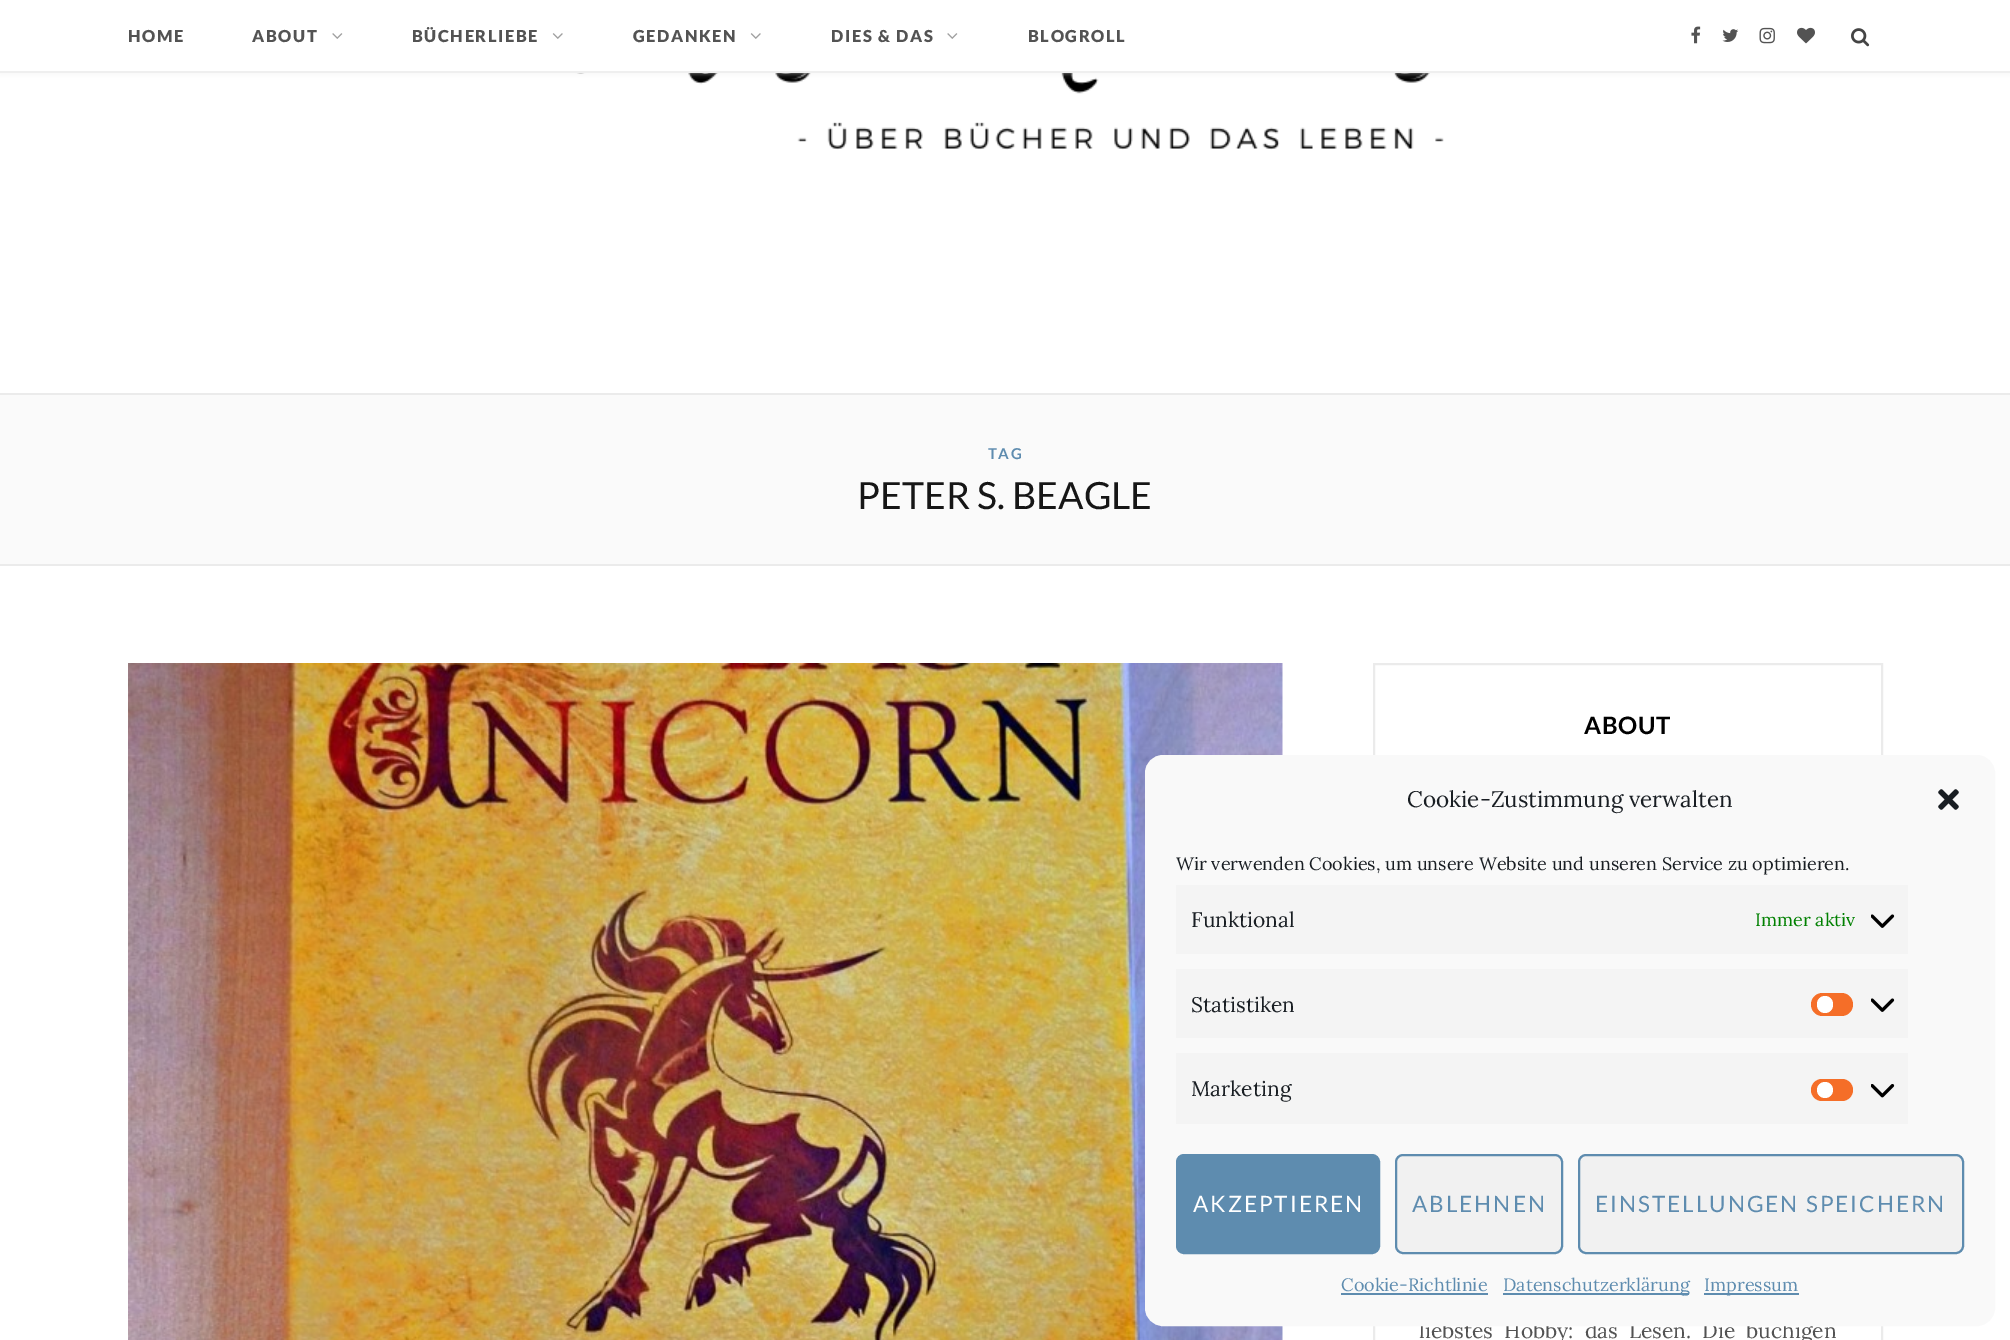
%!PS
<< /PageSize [2010 1340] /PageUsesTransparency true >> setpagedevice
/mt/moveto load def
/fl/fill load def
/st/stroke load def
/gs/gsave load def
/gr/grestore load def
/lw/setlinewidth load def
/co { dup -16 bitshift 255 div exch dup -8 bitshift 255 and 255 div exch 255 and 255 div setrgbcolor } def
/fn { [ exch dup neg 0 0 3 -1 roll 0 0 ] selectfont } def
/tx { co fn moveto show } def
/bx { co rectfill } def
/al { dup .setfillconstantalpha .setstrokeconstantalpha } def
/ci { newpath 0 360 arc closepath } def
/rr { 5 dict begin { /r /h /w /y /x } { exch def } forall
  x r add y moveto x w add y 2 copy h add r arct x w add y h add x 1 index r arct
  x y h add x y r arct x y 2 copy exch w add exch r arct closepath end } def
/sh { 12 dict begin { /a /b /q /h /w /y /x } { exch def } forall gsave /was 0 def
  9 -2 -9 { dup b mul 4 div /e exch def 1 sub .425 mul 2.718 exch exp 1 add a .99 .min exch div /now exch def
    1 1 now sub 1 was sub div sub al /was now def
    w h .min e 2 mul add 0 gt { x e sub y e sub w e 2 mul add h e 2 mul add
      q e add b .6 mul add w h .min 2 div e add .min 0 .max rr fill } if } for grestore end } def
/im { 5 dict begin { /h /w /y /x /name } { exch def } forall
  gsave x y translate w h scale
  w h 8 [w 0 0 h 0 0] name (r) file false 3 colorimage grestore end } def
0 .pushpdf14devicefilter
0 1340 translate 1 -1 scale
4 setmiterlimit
0 0 2010 1340 16#FFFFFF bx
0 393 2010 2 16#EBEBEB bx
(media/8.raw) 559 73 903 77 im
16#EEEEEE co
0 0 2010 72 0 3 1 sh
0 0 2010 71 16#FFFFFF bx
0 71 2010 2 16#EFEFEF bx
(media/1.raw) 332 33 11 6 im
(media/2.raw) 552 33 11 6 im
(media/2.raw) 750 33 11 6 im
(media/1.raw) 947 33 11 6 im
(media/3.raw) 1691 26 10 18 im
(media/4.raw) 1722 29 17 13 im
(media/5.raw) 1759 27 16 17 im
(media/6.raw) 1797 27 18 17 im
(media/7.raw) 1851 28 19 19 im
0 395 2010 169 16#FAFAFA bx
0 564 2010 2 16#EBEBEB bx
(media/9.raw) 128 663 1155 677 im
2 lw
1374 664 508 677 rectstroke
/Lato-Black 16.5 fn
16#535353 co
128 42 mt 1.6 0 (HOME) ashow
252 42 mt 1.6 0 (ABOUT) ashow
412 42 mt 1.6 0 (BÜCHERLIEBE) ashow
633 42 mt 1.6 0 (GEDANKEN) ashow
831 42 mt 1.6 0 (DIES & DAS) ashow
1028 42 mt 1.6 0 (BLOGROLL) ashow
/Lato-Bold 15 fn
16#5E8CAF co
988 459 mt 1.5 0 (TAG) ashow
(PETER S. BEAGLE) 857 509 /Lato-Regular 37.5 16#161616 tx
/Lato-Bold 24 fn
16#000000 co
1584 734 mt .75 0 (ABOUT) ashow
/Lora-Regular 21 fn
16#535353 co
1419 1338 mt 5.5 0 32 (liebstes Hobby: das Lesen. Die buchigen) widthshow
16#F9F9F9 co
1146 756 848 569 17 rr gs fl gr
st
(Cookie-Zustimmung verwalten) 1407 807 /Lora-Regular 22.5 16#191E23 tx
(media/10.raw) 1938 789 21 21 im
(Wir verwenden Cookies, um unsere Website und unseren Service zu optimieren.) 1176 870 /Lora-Regular 18 16#191E23 tx
1176 885 732 69 16#F4F4F4 bx
(Funktional) 1191 927 /Lora-Regular 21 16#191E23 tx
(Immer aktiv) 1755 926 /Lora-Regular 18 16#008000 tx
(media/11.raw) 1871 914 24 14 im
1176 969 732 69 16#F4F4F4 bx
(Statistiken) 1191 1012 /Lora-Regular 21 16#191E23 tx
16#F56E28 co
1811 993 42 23 11.5 rr fl
16#FFFFFF co
1817 996 16 17 8 rr fl
(media/11.raw) 1871 998 24 14 im
1176 1053 732 71 16#F4F4F4 bx
(Marketing) 1191 1096 /Lora-Regular 21 16#191E23 tx
16#F56E28 co
1811 1079 42 22 11 rr fl
16#FFFFFF co
1825 1090 8 ci fl
(media/12.raw) 1871 1084 24 14 im
16#5E8CAF co
1177 1155 202 98 7 rr gs fl gr
st
/Lato-Regular 22.5 fn
16#FFFFFF co
1193 1212 mt 2 0 (AKZEPTIEREN) ashow
16#F1F1F1 co
1396 1155 166 98 7 rr gs fl gr
16#5E8CAF co
st
1412 1212 mt 2 0 (ABLEHNEN) ashow
16#F1F1F1 co
1579 1155 384 98 7 rr gs fl gr
16#5E8CAF co
st
1595 1212 mt 2 0 (EINSTELLUNGEN SPEICHERN) ashow
(Cookie-Richtlinie) 1341 1291 /Lora-Regular 18 16#5E8CAF tx
1341 1293 147 2 16#5E8CAF bx
1503 1293 186 2 16#5E8CAF bx
(Datenschutzerklärung) 1503 1291 /Lora-Regular 18 16#5E8CAF tx
1704 1293 95 2 16#5E8CAF bx
(Impressum) 1704 1291 /Lora-Regular 18 16#5E8CAF tx
.poppdf14devicefilter showpage
